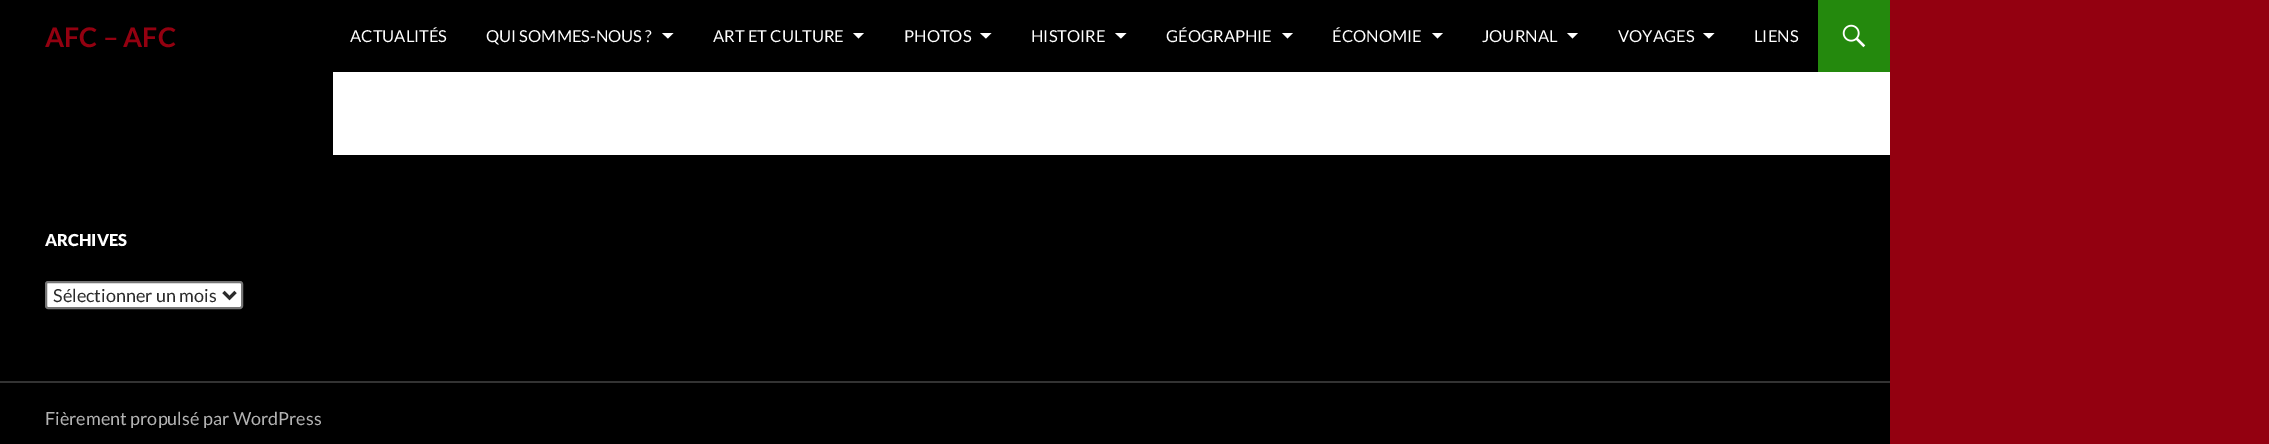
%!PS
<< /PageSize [2269 444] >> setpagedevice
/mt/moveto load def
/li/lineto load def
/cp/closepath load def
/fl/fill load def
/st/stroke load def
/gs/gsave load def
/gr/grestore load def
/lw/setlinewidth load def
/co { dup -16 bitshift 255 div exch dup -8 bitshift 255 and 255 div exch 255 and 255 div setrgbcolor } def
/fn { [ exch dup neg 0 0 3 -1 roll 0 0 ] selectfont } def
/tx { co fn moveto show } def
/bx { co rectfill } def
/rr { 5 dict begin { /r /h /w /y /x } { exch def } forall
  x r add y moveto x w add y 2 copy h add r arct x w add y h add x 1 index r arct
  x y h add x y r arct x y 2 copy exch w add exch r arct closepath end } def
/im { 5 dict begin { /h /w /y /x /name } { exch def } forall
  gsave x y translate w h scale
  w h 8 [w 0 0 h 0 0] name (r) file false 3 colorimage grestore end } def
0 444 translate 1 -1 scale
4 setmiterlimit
0 0 2269 444 16#930010 bx
333 72 1557 83 16#FFFFFF bx
0 0 1818 72 16#000000 bx
16#FFFFFF co
662 33 mt 668 38.5 li 673.5 33 li cp fl
853 33 mt 858.5 38.5 li 864 33 li cp fl
980 33 mt 986 38.5 li 991.5 33 li cp fl
1115 33 mt 1121 38.5 li 1126.5 33 li cp fl
1282 33 mt 1287.5 38.5 li 1293 33 li cp fl
1432 33 mt 1437.5 38.5 li 1443 33 li cp fl
1567 33 mt 1572.5 38.5 li 1578 33 li cp fl
1703 33 mt 1709 38.5 li 1714.5 33 li cp fl
1818 0 72 72 16#24890D bx
(media/1.raw) 1842 24 24 24 im
0 72 333 83 16#000000 bx
0 155 1890 289 16#000000 bx
16#FFFFFF co
46 282 196 26 2 rr gs fl gr
16#767676 co
2 lw
st
16#2B2B2B co
3 lw
223.5 292 mt 229.5 298 li 235.5 292 li st
0 381 1890 2 16#333333 bx
(AFC – AFC) 45 47 /Lato-Bold 27 16#930010 tx
(ACTUALITÉS) 350 42 /Lato-Regular 16.5 16#FFFFFF tx
(QUI SOMMES-NOUS ?) 486 42 /Lato-Regular 16.5 16#FFFFFF tx
(ART ET CULTURE) 713 42 /Lato-Regular 16.5 16#FFFFFF tx
(PHOTOS) 904 42 /Lato-Regular 16.5 16#FFFFFF tx
(HISTOIRE) 1031 42 /Lato-Regular 16.5 16#FFFFFF tx
(GÉOGRAPHIE) 1166 42 /Lato-Regular 16.5 16#FFFFFF tx
(ÉCONOMIE) 1332 42 /Lato-Regular 16.5 16#FFFFFF tx
(JOURNAL) 1482 42 /Lato-Regular 16.5 16#FFFFFF tx
(VOYAGES) 1618 42 /Lato-Regular 16.5 16#FFFFFF tx
(LIENS) 1754 42 /Lato-Regular 16.5 16#FFFFFF tx
(ARCHIVES) 45 246 /Lato-Black 16.5 16#FFFFFF tx
(Sélectionner un mois) 53 302 /Lato-Regular 18 16#2B2B2B tx
(Fièrement propulsé par WordPress) 45 425 /Lato-Regular 18 16#B3B3B3 tx
showpage
